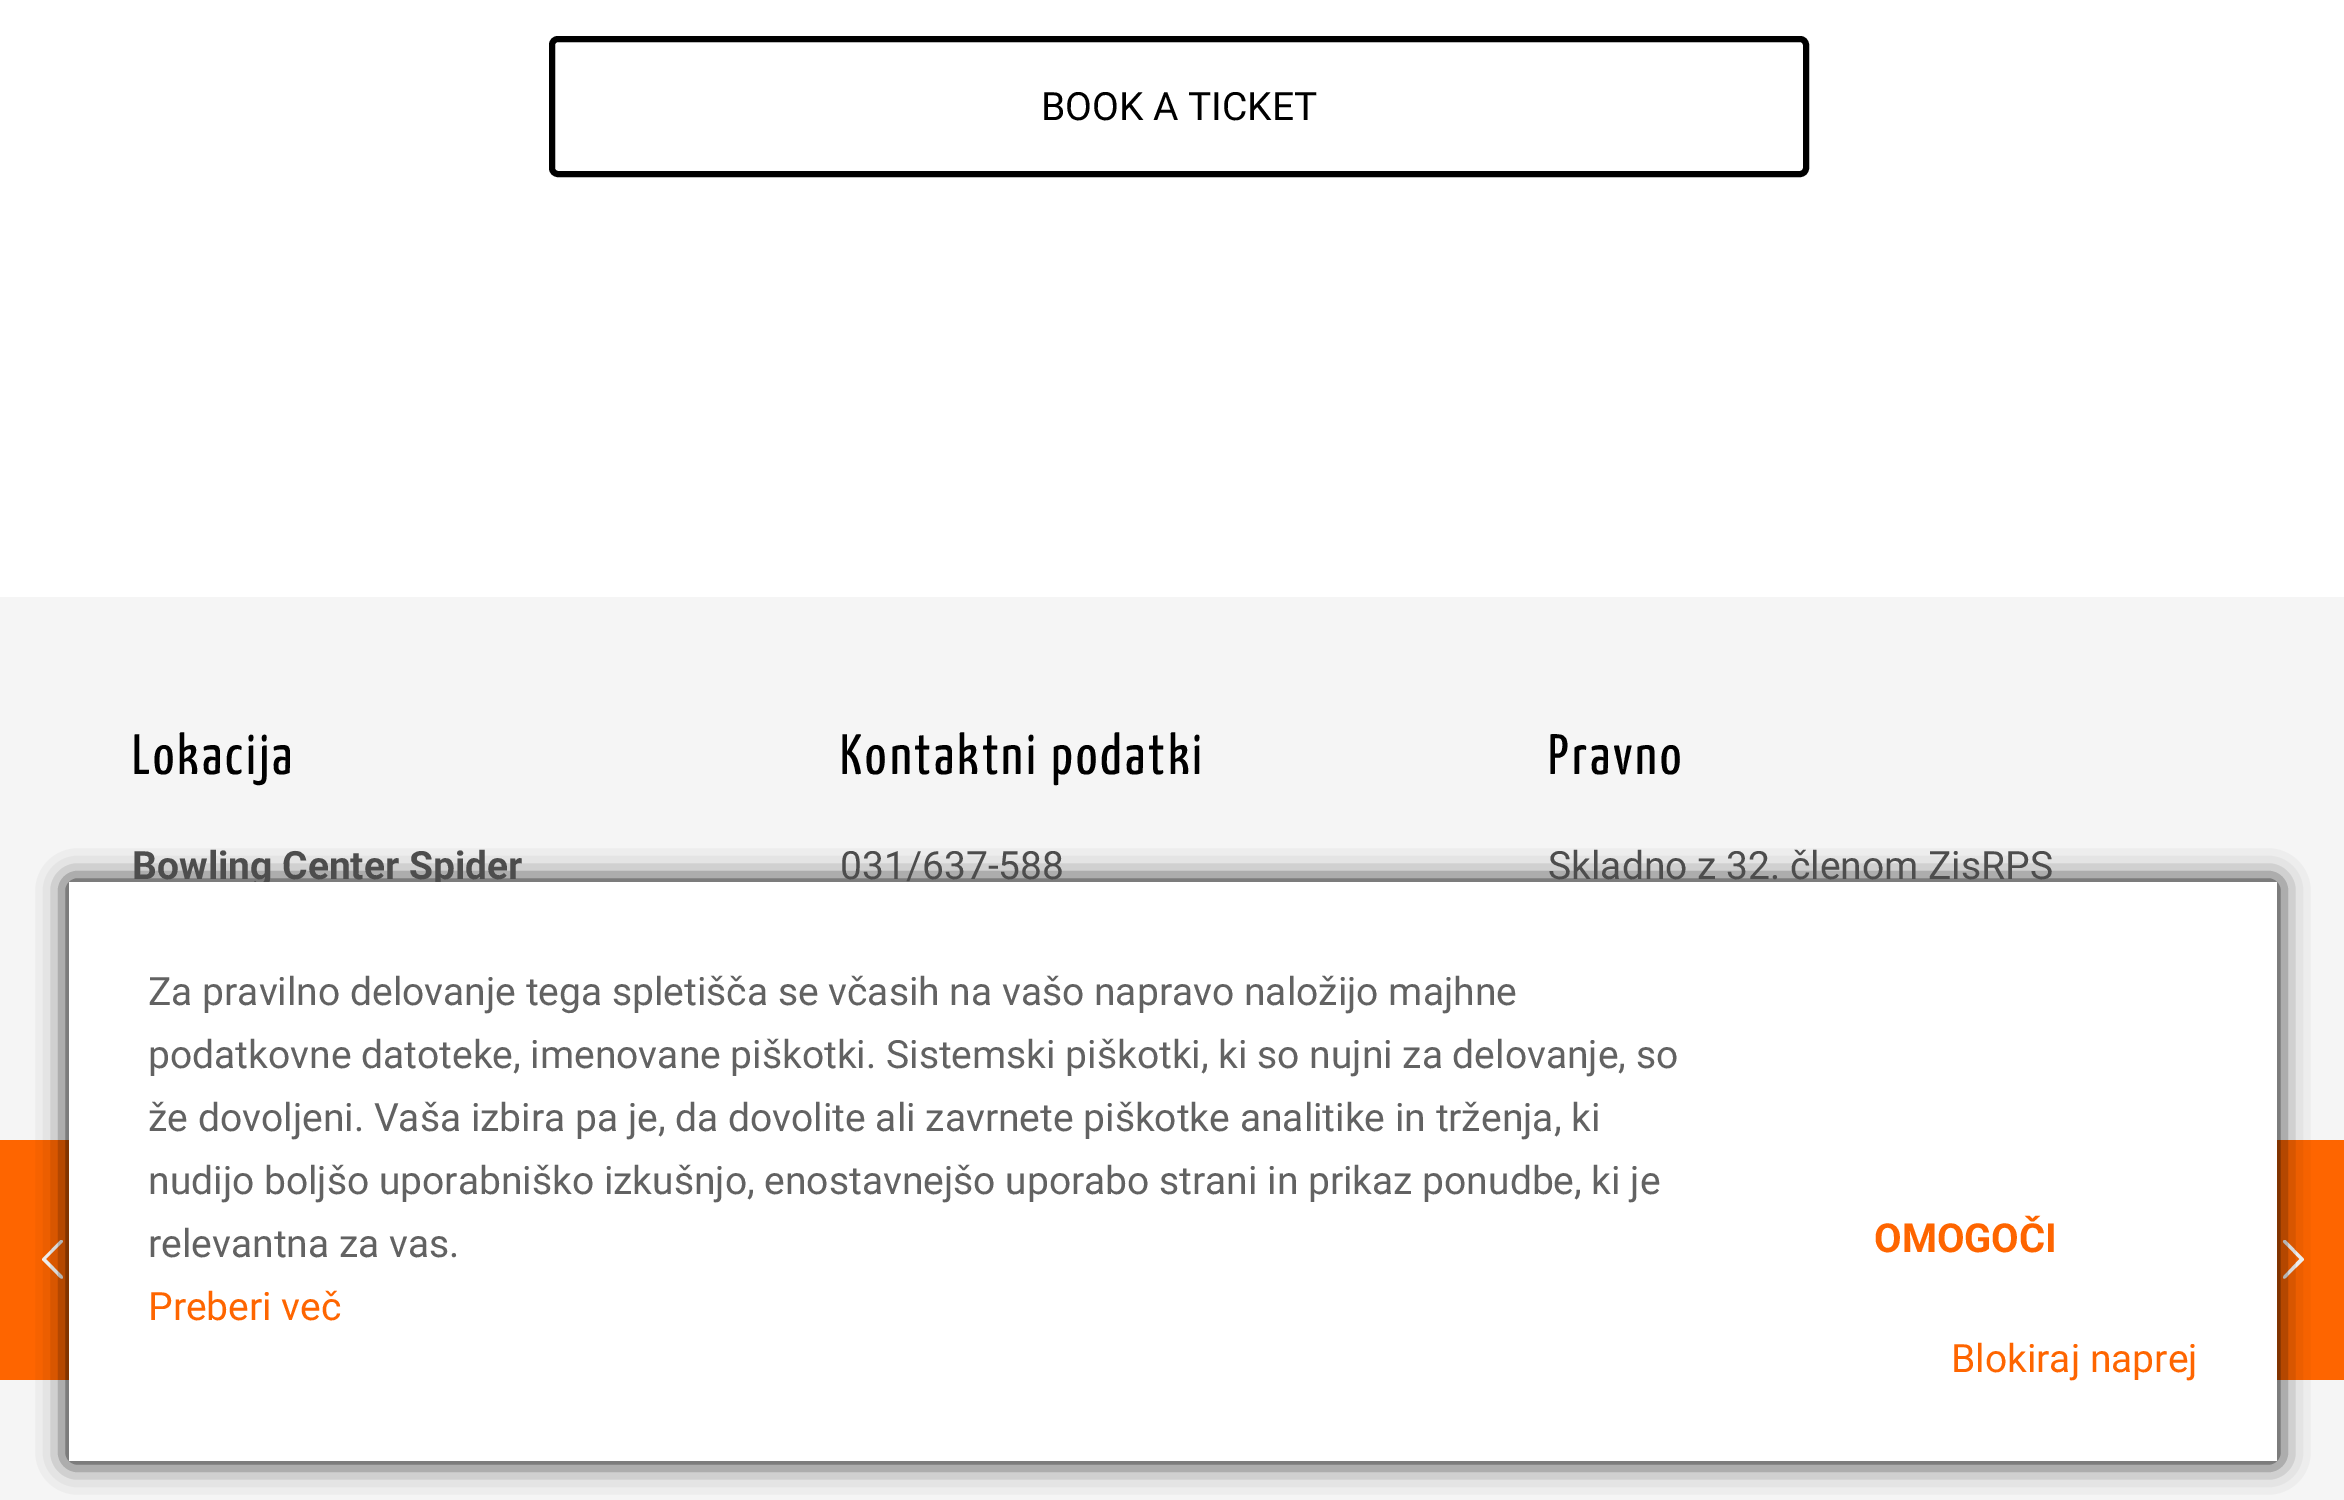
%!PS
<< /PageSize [2344 1500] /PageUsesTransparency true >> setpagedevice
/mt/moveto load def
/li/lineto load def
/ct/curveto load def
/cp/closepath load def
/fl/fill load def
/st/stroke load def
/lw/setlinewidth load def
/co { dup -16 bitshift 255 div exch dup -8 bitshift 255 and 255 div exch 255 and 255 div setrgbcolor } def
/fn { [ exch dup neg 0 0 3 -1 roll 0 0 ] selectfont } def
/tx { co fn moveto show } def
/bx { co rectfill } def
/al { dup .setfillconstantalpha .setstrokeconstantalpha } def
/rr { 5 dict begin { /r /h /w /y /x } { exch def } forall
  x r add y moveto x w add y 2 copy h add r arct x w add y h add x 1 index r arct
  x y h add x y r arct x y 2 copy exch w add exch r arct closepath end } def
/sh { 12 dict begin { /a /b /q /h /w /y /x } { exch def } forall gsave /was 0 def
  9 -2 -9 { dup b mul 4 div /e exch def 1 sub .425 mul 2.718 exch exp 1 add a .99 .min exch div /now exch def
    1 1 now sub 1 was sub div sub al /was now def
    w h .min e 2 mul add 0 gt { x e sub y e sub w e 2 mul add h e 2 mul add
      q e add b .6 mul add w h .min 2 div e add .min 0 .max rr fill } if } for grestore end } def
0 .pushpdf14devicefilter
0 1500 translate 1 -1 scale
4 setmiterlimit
0 0 2344 1500 16#FFFFFF bx
16#000000 co
6 lw
552 39 1254 135 6 rr st
0 597 2344 903 16#F5F5F5 bx
0 1140 69 240 16#FE6500 bx
16#FFFFFF co
62.5 1276 mt 63 1277.5 li 62 1281 57.5 1275.5 57 1275 ct 42 1260 li 42 1259 li 42.5 1258.5 li 60.5 1240 li 61.5 1240 li 65.5 1241 60 1244.5 59.5 1245.5 ct 46 1259 li cp fl
2277 1140 67 240 16#FE6500 bx
16#FFFFFF co
2283.5 1276 mt 2299.5 1259 li 2286.5 1245.5 li 2285.5 1244.5 2280.5 1241 2284.5 1240 ct 2285.5 1240 li 2303.5 1258.5 li 2304 1259 li 2304 1260 li 2288.5 1275 li 2288.5 1275.5 2284 1281 2283 1277.5 ct cp fl
16#000000 co
69 882 2208 579 0 15 1 sh
(BOOK A TICKET) 1041 120 /Roboto-Regular 39 16#000000 tx
/YanoneKaffeesatz-Regular 57 fn
132 774 mt 3 0 (Lokacija) ashow
(Bowling Center Spider) 132 879 /Roboto-Bold 39 16#4D4D4D tx
/YanoneKaffeesatz-Regular 57 fn
16#000000 co
840 774 mt 3 0 (Kontaktni podatki) ashow
(031/637-588) 840 879 /Roboto-Regular 39 16#4D4D4D tx
/YanoneKaffeesatz-Regular 57 fn
16#000000 co
1548 774 mt 3 0 (Pravno) ashow
(Skladno z 32. členom ZisRPS) 1548 879 /Roboto-Regular 39 16#4D4D4D tx
69 882 2208 579 16#FFFFFF bx
(Za pravilno delovanje tega spletišča se včasih na vašo napravo naložijo majhne) 148 1005 /Roboto-Regular 39 16#626262 tx
(podatkovne datoteke, imenovane piškotki. Sistemski piškotki, ki so nujni za delovanje, so) 148 1068 /Roboto-Regular 39 16#626262 tx
(že dovoljeni. Vaša izbira pa je, da dovolite ali zavrnete piškotke analitike in trženja, ki) 148 1131 /Roboto-Regular 39 16#626262 tx
(nudijo boljšo uporabniško izkušnjo, enostavnejšo uporabo strani in prikaz ponudbe, ki je) 148 1194 /Roboto-Regular 39 16#626262 tx
(relevantna za vas.) 148 1257 /Roboto-Regular 39 16#626262 tx
(Preberi več) 148 1320 /Roboto-Regular 39 16#FE6500 tx
(OMOGOČI) 1874 1252 /Roboto-Bold 40 16#FE6500 tx
(Blokiraj naprej) 1951 1372 /Roboto-Regular 39 16#FE6500 tx
.poppdf14devicefilter showpage
